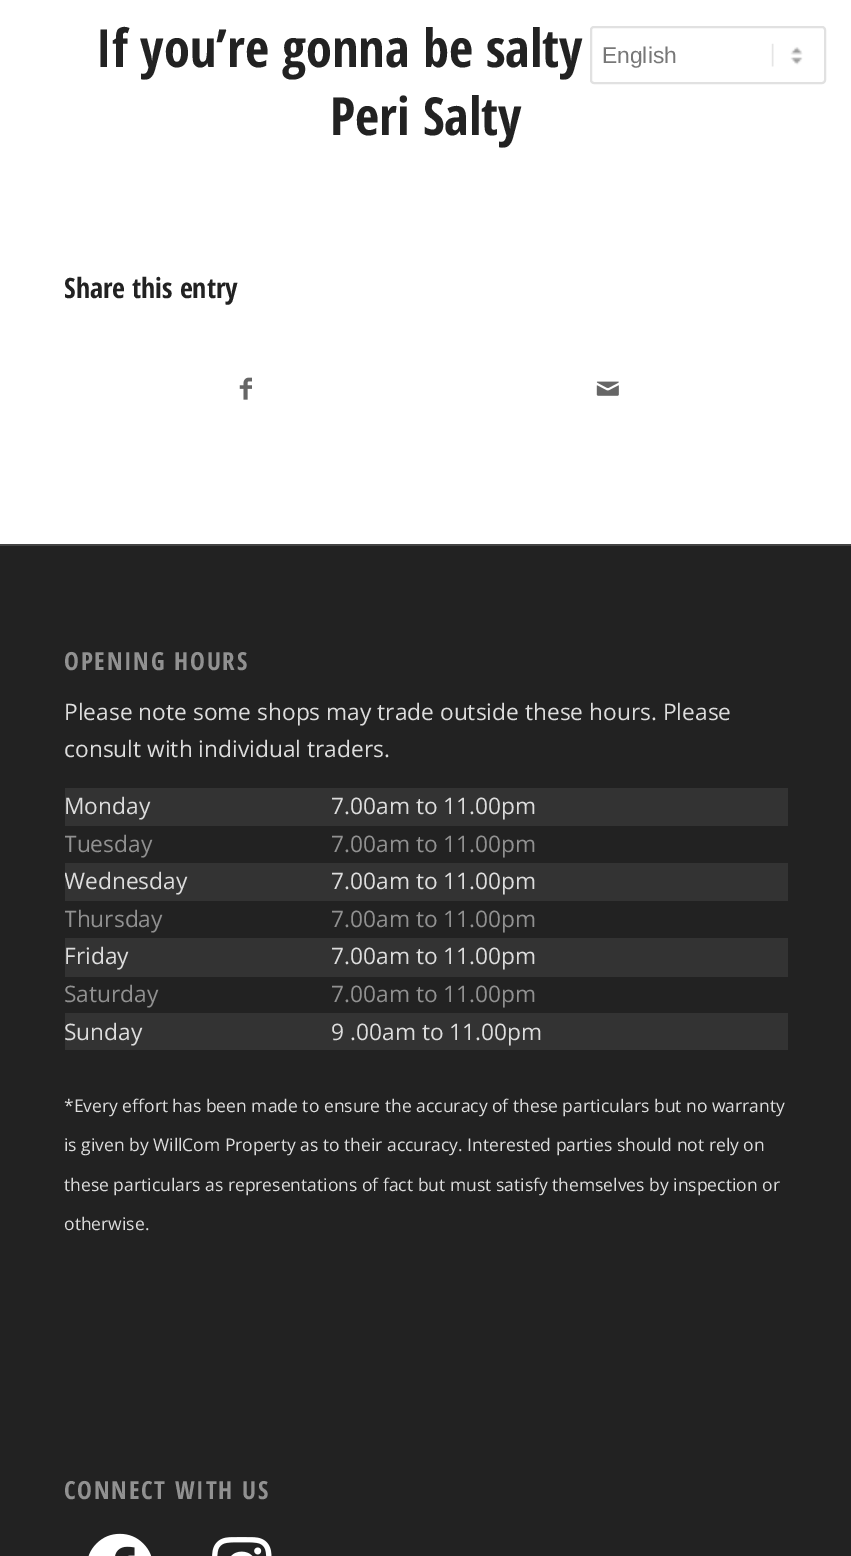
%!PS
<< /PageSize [851 1556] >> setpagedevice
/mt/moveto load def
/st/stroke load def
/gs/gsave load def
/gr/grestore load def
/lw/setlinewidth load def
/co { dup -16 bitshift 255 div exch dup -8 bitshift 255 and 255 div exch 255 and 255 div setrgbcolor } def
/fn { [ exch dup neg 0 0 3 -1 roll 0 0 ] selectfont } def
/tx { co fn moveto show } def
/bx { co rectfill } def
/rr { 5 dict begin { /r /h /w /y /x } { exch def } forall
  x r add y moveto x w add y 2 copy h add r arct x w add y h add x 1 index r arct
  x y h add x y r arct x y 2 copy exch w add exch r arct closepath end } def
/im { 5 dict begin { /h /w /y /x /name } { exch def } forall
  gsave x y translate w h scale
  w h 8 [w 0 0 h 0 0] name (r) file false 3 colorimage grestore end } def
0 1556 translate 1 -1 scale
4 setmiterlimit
0 0 851 1556 16#FFFFFF bx
(media/1.raw) 239 377 13 23 im
(media/2.raw) 596 381 23 15 im
0 546 851 1010 16#222222 bx
0 544 851 2 16#444444 bx
65 788 723 262 16#333333 bx
65 826 723 37 16#222222 bx
65 901 723 37 16#222222 bx
65 977 723 36 16#222222 bx
(media/3.raw) 88 1533 64 23 im
(media/4.raw) 212 1537 60 19 im
(media/5.raw) 771 43 32 24 im
16#E1E1E1 co
2 lw
591 27 234 56 3 rr st
(If you’re gonna be salty) 96 67 /OpenSansCondensed-Bold 52.5 16#222222 tx
(Peri Salty) 330 135 /OpenSansCondensed-Bold 52.5 16#222222 tx
(Share this entry) 64 298 /OpenSansCondensed-Bold 28 16#222222 tx
/OpenSansCondensed-Bold 25 fn
16#919191 co
64 670 mt 1.75 0 (OPENING HOURS) ashow
(Please note some shops may trade outside these hours. Please) 64 720 /OpenSans-Regular 22.75 16#DDDDDD tx
(consult with individual traders.) 64 757 /OpenSans-Regular 22.75 16#DDDDDD tx
(Monday) 64 814 /OpenSans-Regular 22.75 16#DDDDDD tx
(7.00am to 11.00pm) 331 814 /OpenSans-Regular 22.75 16#DDDDDD tx
gs
65 625 723 637 rectclip
(Tuesday) 64 852 /OpenSans-Regular 22.75 16#919191 tx
gr
(7.00am to 11.00pm) 331 852 /OpenSans-Regular 22.75 16#919191 tx
gs
65 625 723 637 rectclip
(Wednesday) 64 889 /OpenSans-Regular 22.75 16#DDDDDD tx
gr
(7.00am to 11.00pm) 331 889 /OpenSans-Regular 22.75 16#DDDDDD tx
gs
65 625 723 637 rectclip
(Thursday) 64 927 /OpenSans-Regular 22.75 16#919191 tx
gr
(7.00am to 11.00pm) 331 927 /OpenSans-Regular 22.75 16#919191 tx
(Friday) 64 964 /OpenSans-Regular 22.75 16#DDDDDD tx
(7.00am to 11.00pm) 331 964 /OpenSans-Regular 22.75 16#DDDDDD tx
(Saturday) 64 1002 /OpenSans-Regular 22.75 16#919191 tx
(7.00am to 11.00pm) 331 1002 /OpenSans-Regular 22.75 16#919191 tx
(Sunday) 64 1040 /OpenSans-Regular 22.75 16#DDDDDD tx
(9 .00am to 11.00pm) 331 1040 /OpenSans-Regular 22.75 16#DDDDDD tx
(*Every effort has been made to ensure the accuracy of these particulars but no warranty) 64 1112 /OpenSans-Regular 17.5 16#DDDDDD tx
(is given by WillCom Property as to their accuracy. Interested parties should not rely on) 64 1151 /OpenSans-Regular 17.5 16#DDDDDD tx
(these particulars as representations of fact but must satisfy themselves by inspection or) 64 1191 /OpenSans-Regular 17.5 16#DDDDDD tx
(otherwise.) 64 1230 /OpenSans-Regular 17.5 16#DDDDDD tx
/OpenSansCondensed-Bold 25 fn
16#919191 co
64 1499 mt 1.75 0 (CONNECT WITH US) ashow
(English) 602 63 /LiberationSans-Regular 22.75 16#777777 tx
showpage
